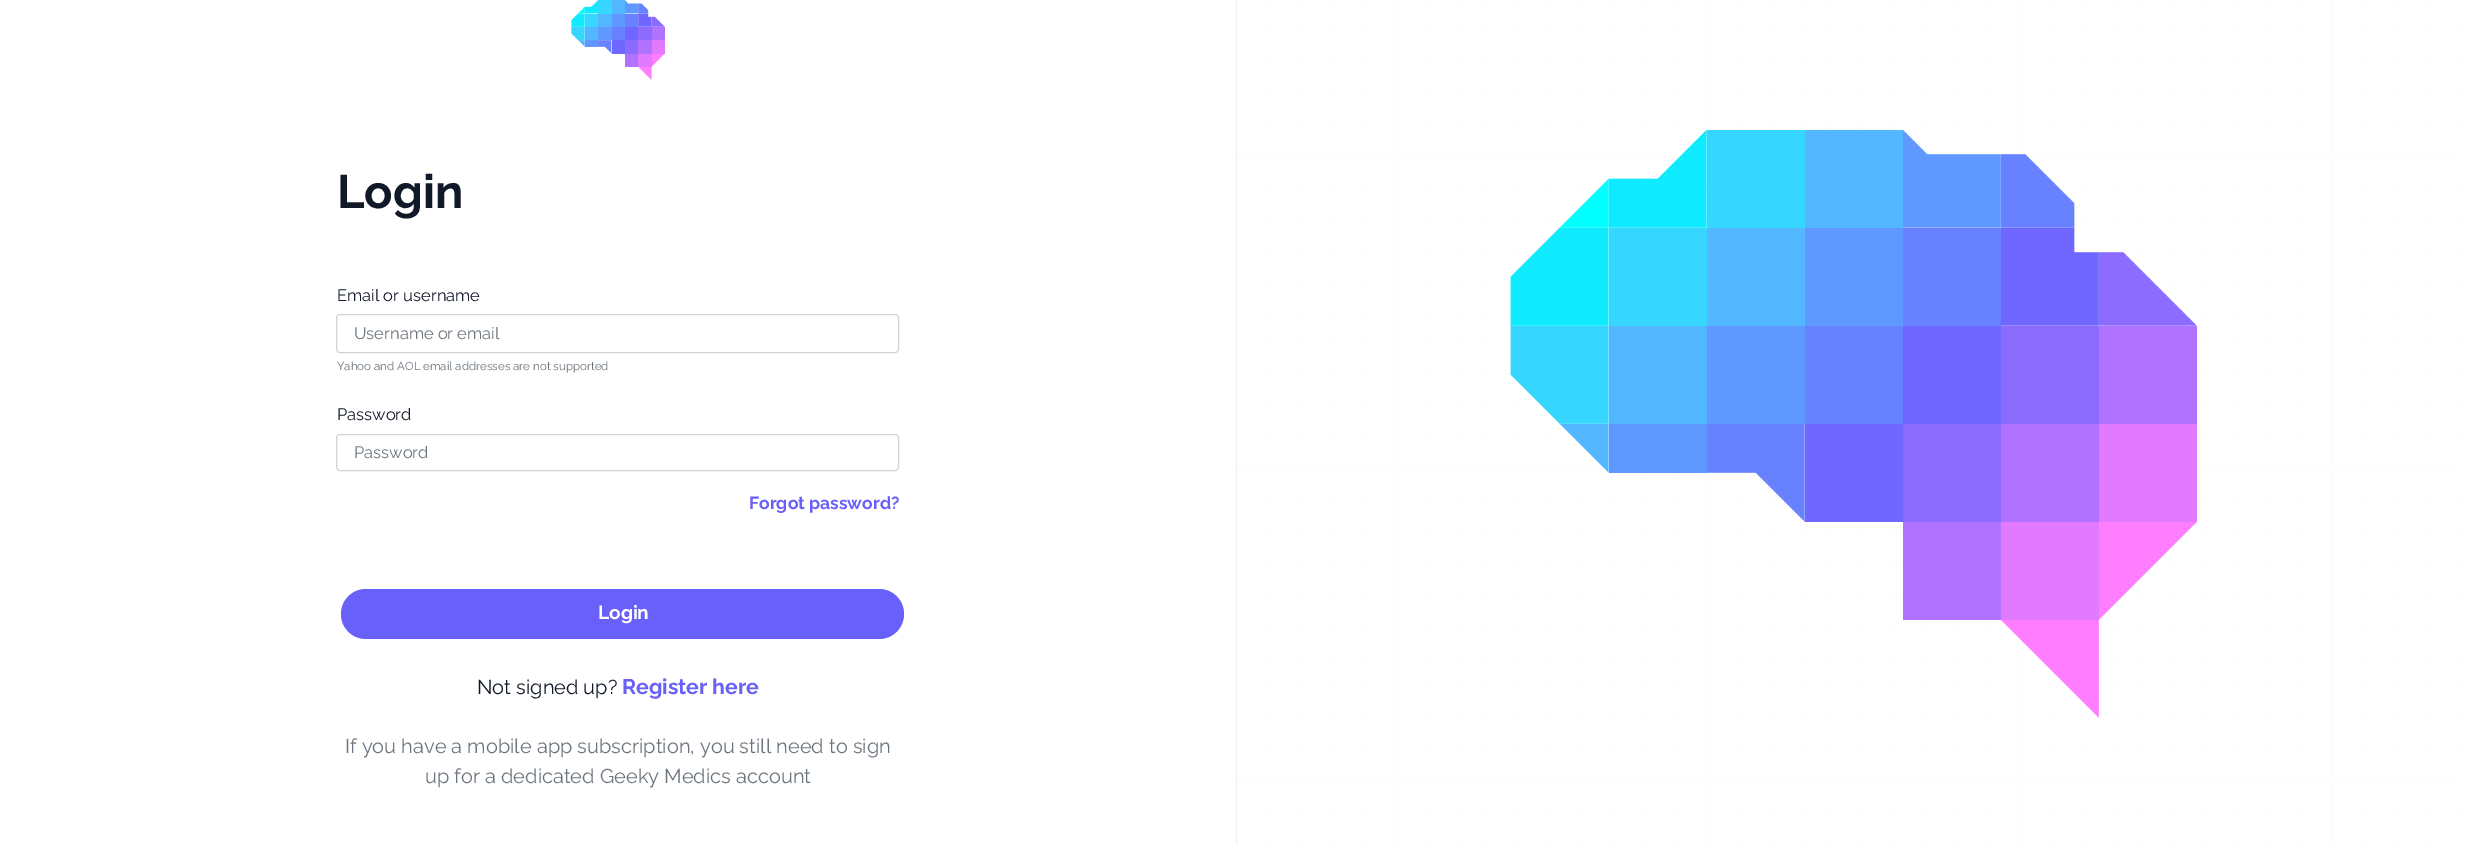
%!PS
<< /PageSize [2471 845] >> setpagedevice
/fl/fill load def
/st/stroke load def
/co { dup -16 bitshift 255 div exch dup -8 bitshift 255 and 255 div exch 255 and 255 div setrgbcolor } def
/fn { [ exch dup neg 0 0 3 -1 roll 0 0 ] selectfont } def
/tx { co fn moveto show } def
/bx { co rectfill } def
/rr { 5 dict begin { /r /h /w /y /x } { exch def } forall
  x r add y moveto x w add y 2 copy h add r arct x w add y h add x 1 index r arct
  x y h add x y r arct x y 2 copy exch w add exch r arct closepath end } def
/im { 5 dict begin { /h /w /y /x /name } { exch def } forall
  gsave x y translate w h scale
  w h 8 [w 0 0 h 0 0] name (r) file false 3 colorimage grestore end } def
0 845 translate 1 -1 scale
4 setmiterlimit
0 0 2471 845 16#FFFFFF bx
(media/1.raw) 571 0 94 80 im
16#CED4DA co
336.5 314.5 562 38 3.5 rr st
336.5 434.5 562 36 3.5 rr st
16#6860F8 co
341 589 563 50 25 rr fl
(media/2.raw) 1237 0 1220 845 im
1236 0 1 845 16#F0F0F0 bx
(media/3.raw) 1510 129 687 589 im
(Login) 337 208 /Raleway-Thin 47 16#111827 tx
(Email or username) 337 301 /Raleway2-Thin 16.5 16#111827 tx
(Username or email) 354 339 /Raleway2-Thin 16.5 16#6C757D tx
(Yahoo and AOL email addresses are not supported) 337 370 /Raleway2-Thin 11.5 16#6C757D tx
(Password) 337 420 /Raleway2-Thin 16.5 16#111827 tx
(Password) 354 458 /Raleway2-Thin 16.5 16#6C757D tx
(Forgot password?) 749 509 /Raleway-Thin 17.5 16#6860F8 tx
(Login) 598 619 /Raleway-Thin 19 16#FFFFFF tx
(Not signed up?) 477 694 /Raleway2-Thin 20 16#111827 tx
(Register here) 622 694 /Raleway-Thin 21.25 16#6860F8 tx
(If you have a mobile app subscription, you still need to sign) 345 753 /Raleway2-Thin 20 16#6C757D tx
(up for a dedicated Geeky Medics account) 425 783 /Raleway2-Thin 20 16#6C757D tx
showpage
